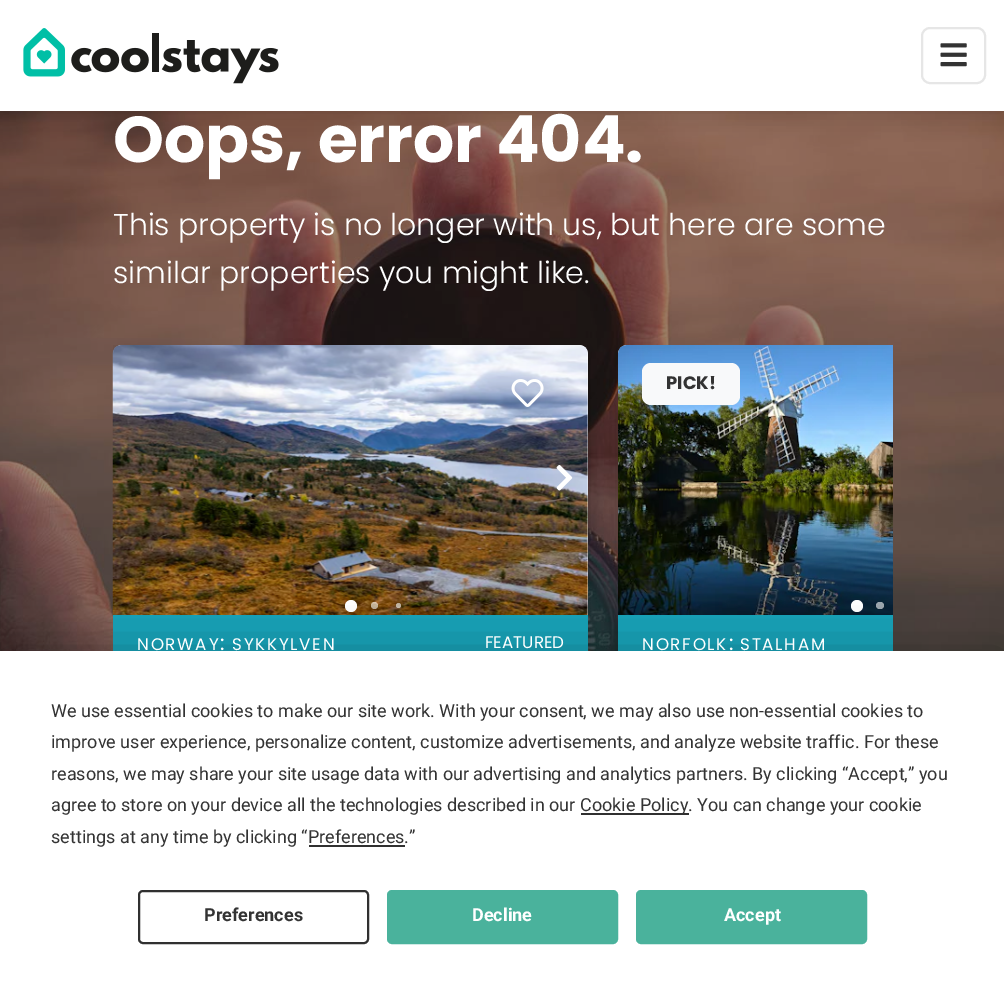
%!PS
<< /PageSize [1004 988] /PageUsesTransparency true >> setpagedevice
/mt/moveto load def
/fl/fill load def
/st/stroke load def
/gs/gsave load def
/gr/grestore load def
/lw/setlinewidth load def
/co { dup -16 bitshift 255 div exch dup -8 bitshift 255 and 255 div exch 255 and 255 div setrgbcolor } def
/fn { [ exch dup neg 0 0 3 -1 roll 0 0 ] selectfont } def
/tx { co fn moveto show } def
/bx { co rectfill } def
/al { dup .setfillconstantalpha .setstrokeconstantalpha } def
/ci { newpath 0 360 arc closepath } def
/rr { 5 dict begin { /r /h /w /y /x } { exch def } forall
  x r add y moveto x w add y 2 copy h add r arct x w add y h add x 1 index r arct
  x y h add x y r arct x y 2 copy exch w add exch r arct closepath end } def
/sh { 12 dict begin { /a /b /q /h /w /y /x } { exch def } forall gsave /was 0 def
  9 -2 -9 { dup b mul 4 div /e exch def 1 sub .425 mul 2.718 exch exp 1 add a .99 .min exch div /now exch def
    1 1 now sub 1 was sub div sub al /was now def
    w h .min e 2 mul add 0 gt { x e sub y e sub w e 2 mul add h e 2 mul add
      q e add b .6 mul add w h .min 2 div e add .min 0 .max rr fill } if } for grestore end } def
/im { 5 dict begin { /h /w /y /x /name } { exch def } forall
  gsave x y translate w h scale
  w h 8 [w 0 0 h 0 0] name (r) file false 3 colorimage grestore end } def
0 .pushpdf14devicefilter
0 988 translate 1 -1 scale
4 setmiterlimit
0 0 1004 988 16#FFFFFF bx
(media/3.raw) 0 111 1004 540 im
16#000000 co
0 0 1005 111 0 12 .15 sh
0 0 1004 111 16#FFFFFF bx
(media/1.raw) 23 28 256 56 im
16#E6E6E6 co
2 lw
922 28 63 55 8 rr st
(media/2.raw) 940 43 27 24 im
gs
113 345 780 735 rectclip
16#000000 co
113 345 475 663 9 12 .15 sh
gr
16#FFFFFF co
113 345 475 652 9 rr fl
(media/4.raw) 112 345 476 270 im
(media/5.raw) 129 470 16 25 im
(media/6.raw) 556 465 17 26 im
351 606 6 ci fl
0.6 al
374.5 605.5 3.5 ci fl
398.5 605.5 2.5 ci fl
1 al
(media/7.raw) 511 379 33 28 im
113 615 475 36 16#17A2B8 bx
gs
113 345 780 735 rectclip
16#000000 co
618 345 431 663 9 12 .15 sh
gr
(media/8.raw) 618 345 275 270 im
(media/9.raw) 635 469 15 26 im
16#FFFFFF co
857 606 6 ci fl
0.6 al
876 602 8 7 3.5 rr fl
1 al
16#F8F9FA co
642 363 98 42 9 rr fl
618 615 275 36 16#17A2B8 bx
16#000000 co
0 651 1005 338 0 26 .25 sh
0 651 1004 337 16#FFFFFF bx
581 813 108 2 16#303030 bx
139 891 229 52 4 rr st
16#4AB29C co
388 891 229 52 4 rr gs fl gr
st
637 891 229 52 4 rr gs fl gr
st
(Oops, error 404.) 113 162 /Poppins-Bold 64.75 16#FFFFFF tx
(This property is no longer with us, but here are some) 113 235 /Poppins-Light 30 16#FFFFFF tx
(similar properties you might like.) 113 283 /Poppins-Light 30 16#FFFFFF tx
/Poppins-Regular 16.75 fn
137 650 mt 1.75 0 (NORWAY) ashow
(:) 220 650 /Poppins-Regular 21 16#FFFFFF tx
/Poppins-Regular 16.75 fn
232 650 mt 1.75 0 (SYKKYLVEN) ashow
(FEATURED) 485 648 /Poppins-Regular 16.75 16#FFFFFF tx
(PICK!) 666 389 /Poppins-Bold 18 16#333333 tx
/Poppins-Regular 16.75 fn
16#FFFFFF co
642 650 mt 1.75 0 (NORFOLK) ashow
(:) 729 650 /Poppins-Regular 21 16#FFFFFF tx
/Poppins-Regular 16.75 fn
740 650 mt 1.75 0 (STALHAM) ashow
(We use essential cookies to make our site work. With your consent, we may also use non-essential cookies to) 51 717 /Roboto-Regular 18 16#333333 tx
(improve user experience, personalize content, customize advertisements, and analyze website traffic. For these) 51 748 /Roboto-Regular 18 16#333333 tx
(reasons, we may share your site usage data with our advertising and analytics partners. By clicking “Accept,” you) 51 780 /Roboto-Regular 18 16#333333 tx
(agree to store on your device all the technologies described in our) 51 811 /Roboto-Regular 18 16#333333 tx
(Cookie Policy. You can change your cookie) 580 811 /Roboto-Regular 18 16#333333 tx
(settings at any time by clicking “Preferences.”) 51 843 /Roboto-Regular 18 16#333333 tx
309 845 96 2 16#303030 bx
(Preferences) 204 921 /Roboto-Bold 18 16#333333 tx
(Decline) 472 921 /Roboto-Bold 18 16#FFFFFF tx
(Accept) 724 921 /Roboto-Bold 18 16#FFFFFF tx
.poppdf14devicefilter showpage
